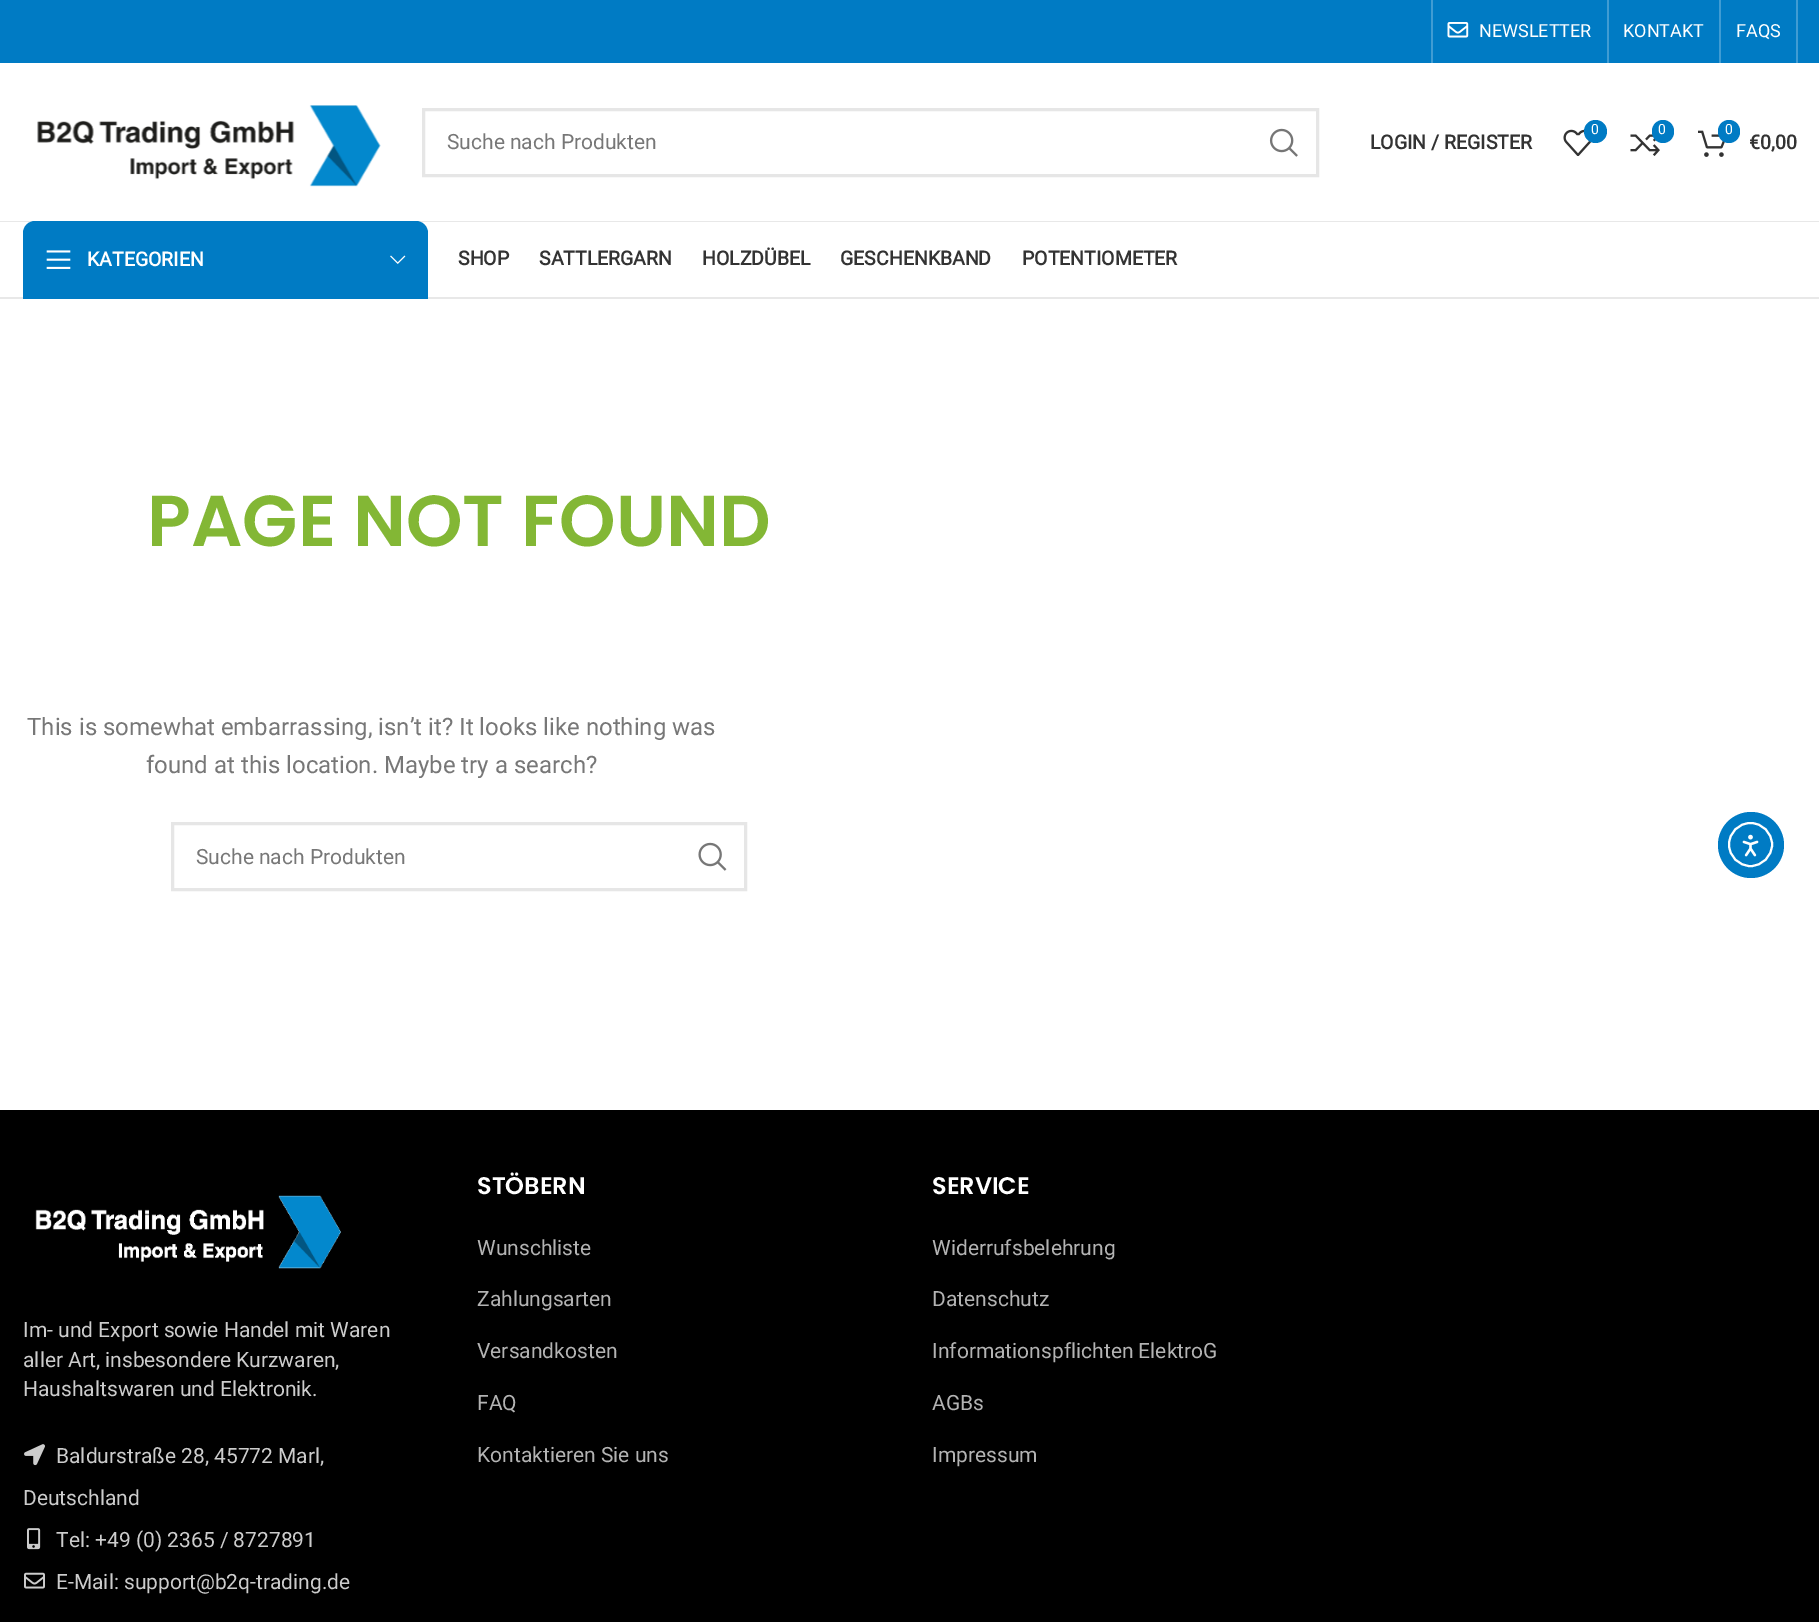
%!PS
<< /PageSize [1819 1622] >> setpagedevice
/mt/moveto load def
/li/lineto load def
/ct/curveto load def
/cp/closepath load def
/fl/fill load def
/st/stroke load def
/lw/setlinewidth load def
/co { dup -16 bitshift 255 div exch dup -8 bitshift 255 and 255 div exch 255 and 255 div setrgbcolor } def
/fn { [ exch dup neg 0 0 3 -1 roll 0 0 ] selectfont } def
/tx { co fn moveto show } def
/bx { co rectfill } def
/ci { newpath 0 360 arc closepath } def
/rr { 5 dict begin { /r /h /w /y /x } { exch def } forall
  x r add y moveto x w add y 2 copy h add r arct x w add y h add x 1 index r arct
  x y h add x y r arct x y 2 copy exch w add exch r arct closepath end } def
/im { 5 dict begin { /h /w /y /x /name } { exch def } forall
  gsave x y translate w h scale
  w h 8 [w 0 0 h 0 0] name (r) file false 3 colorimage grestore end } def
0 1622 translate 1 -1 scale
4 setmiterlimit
0 0 1819 1622 16#FFFFFF bx
0 0 1819 63 16#007BC4 bx
1431 0 2 63 16#409CD3 bx
(media/1.raw) 1447 22 22 16 im
1607 0 2 63 16#409CD3 bx
1719 0 2 63 16#409CD3 bx
1796 0 2 63 16#409CD3 bx
0 221 1819 1 16#E8E8E8 bx
(media/2.raw) 37 105 344 82 im
16#E6E6E6 co
3 lw
423.5 109.5 894 66 rectstroke
(media/3.raw) 1269 128 29 29 im
(media/4.raw) 1563 129 29 27 im
16#007BC4 co
1595.5 131.5 11.5 ci fl
(media/5.raw) 1630 134 30 22 im
1652 120 22 23 11 rr fl
(media/6.raw) 1698 130 27 27 im
1718 120 22 23 11 rr fl
0 297 1819 2 16#E8E8E8 bx
16#007BC4 co
35 221 mt 416 221 li 422.5 221 428 226.5 428 233 ct 428 299 li 23 299 li 23 233 li 23 226.5 28.5 221 35 221 ct cp fl
(media/7.raw) 46 250 25 19 im
(media/8.raw) 390 255 16 9 im
16#E6E6E6 co
172.5 823.5 573 66 rectstroke
(media/9.raw) 698 842 29 29 im
0 1110 1819 512 16#000000 bx
(media/10.raw) 35 1195 306 74 im
(media/11.raw) 24 1444 21 22 im
(media/12.raw) 27 1528 14 22 im
(media/13.raw) 24 1572 21 17 im
16#007BC4 co
1751 845 33 ci fl
16#FFFFFF co
2 lw
1750.5 844.5 21.5 ci st
(media/14.raw) 1742 834 17 23 im
(NEWSLETTER) 1479 37 /Roboto-Regular 18 16#FFFFFF tx
(KONTAKT) 1623 37 /Roboto-Regular 18 16#FFFFFF tx
(FAQS) 1736 37 /Roboto-Regular 18 16#FFFFFF tx
(Suche nach Produkten) 447 149 /Roboto-Regular 21 16#777777 tx
(LOGIN / REGISTER) 1370 149 /Roboto-Bold 19.5 16#333333 tx
(0) 1591 134 /Roboto-Regular 14 16#FFFFFF tx
(0) 1658 134 /Roboto-Regular 14 16#FFFFFF tx
(0) 1725 134 /Roboto-Regular 14 16#FFFFFF tx
(€0,00) 1749 149 /Roboto-Bold 19.5 16#333333 tx
(KATEGORIEN) 87 266 /Roboto-Bold 19.5 16#FFFFFF tx
(SHOP) 458 265 /Roboto-Bold 19.5 16#333333 tx
(SATTLERGARN) 539 265 /Roboto-Bold 19.5 16#333333 tx
(HOLZDÜBEL) 702 265 /Roboto-Bold 19.5 16#333333 tx
(GESCHENKBAND) 840 265 /Roboto-Bold 19.5 16#333333 tx
(POTENTIOMETER) 1022 265 /Roboto-Bold 19.5 16#333333 tx
(PAGE NOT FOUND) 147 546 /Poppins-SemiBold 72 16#83B735 tx
(This is somewhat embarrassing, isn’t it? It looks like nothing was) 27 735 /Roboto-Regular 24 16#777777 tx
(found at this location. Maybe try a search?) 146 773 /Roboto-Regular 24 16#777777 tx
(Suche nach Produkten) 196 864 /Roboto-Regular 21 16#777777 tx
(Im- und Export sowie Handel mit Waren) 23 1337 /Roboto-Regular 21 16#CCCCCC tx
(aller Art, insbesondere Kurzwaren,) 23 1367 /Roboto-Regular 21 16#CCCCCC tx
(Haushaltswaren und Elektronik.) 23 1396 /Roboto-Regular 21 16#CCCCCC tx
(Baldurstraße 28, 45772 Marl,) 56 1463 /Roboto-Regular 21 16#CCCCCC tx
(Deutschland) 23 1505 /Roboto-Regular 21 16#CCCCCC tx
(Tel: +49 \(0\) 2365 / 8727891) 56 1547 /Roboto-Regular 21 16#CCCCCC tx
(E-Mail: support@b2q-trading.de) 56 1589 /Roboto-Regular 21 16#CCCCCC tx
(STÖBERN) 477 1194 /Poppins-SemiBold 24 16#FFFFFF tx
(Wunschliste) 477 1255 /Roboto-Regular 21 16#B3B3B3 tx
(Zahlungsarten) 477 1306 /Roboto-Regular 21 16#B3B3B3 tx
(Versandkosten) 477 1358 /Roboto-Regular 21 16#B3B3B3 tx
(FAQ) 477 1410 /Roboto-Regular 21 16#B3B3B3 tx
(Kontaktieren Sie uns) 477 1462 /Roboto-Regular 21 16#B3B3B3 tx
(SERVICE) 932 1194 /Poppins-SemiBold 24 16#FFFFFF tx
(Widerrufsbelehrung) 932 1255 /Roboto-Regular 21 16#B3B3B3 tx
(Datenschutz) 932 1306 /Roboto-Regular 21 16#B3B3B3 tx
(Informationspflichten ElektroG) 932 1358 /Roboto-Regular 21 16#B3B3B3 tx
(AGBs) 932 1410 /Roboto-Regular 21 16#B3B3B3 tx
(Impressum) 932 1462 /Roboto-Regular 21 16#B3B3B3 tx
showpage
